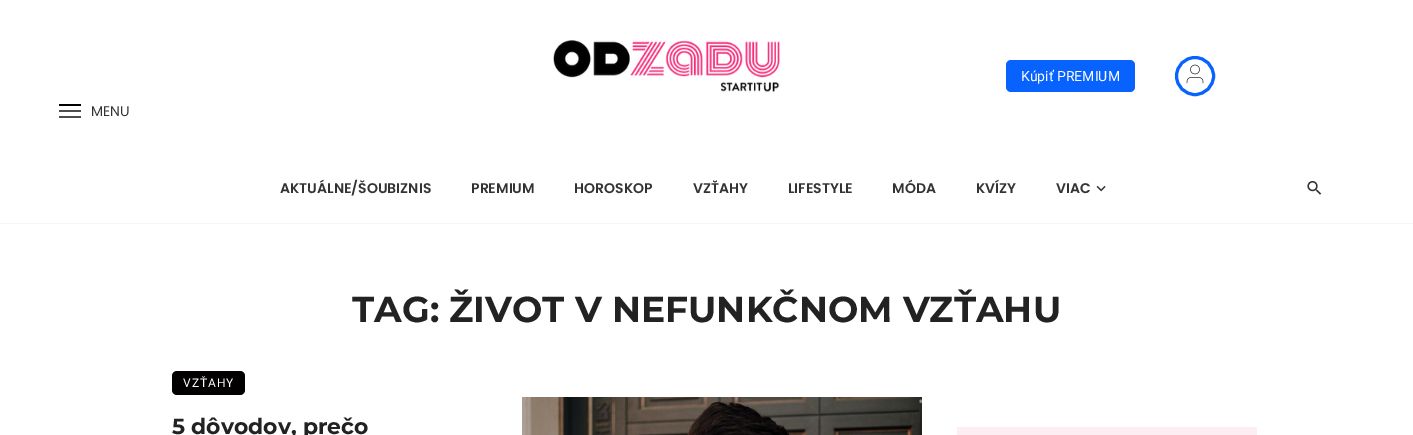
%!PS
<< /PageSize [1413 435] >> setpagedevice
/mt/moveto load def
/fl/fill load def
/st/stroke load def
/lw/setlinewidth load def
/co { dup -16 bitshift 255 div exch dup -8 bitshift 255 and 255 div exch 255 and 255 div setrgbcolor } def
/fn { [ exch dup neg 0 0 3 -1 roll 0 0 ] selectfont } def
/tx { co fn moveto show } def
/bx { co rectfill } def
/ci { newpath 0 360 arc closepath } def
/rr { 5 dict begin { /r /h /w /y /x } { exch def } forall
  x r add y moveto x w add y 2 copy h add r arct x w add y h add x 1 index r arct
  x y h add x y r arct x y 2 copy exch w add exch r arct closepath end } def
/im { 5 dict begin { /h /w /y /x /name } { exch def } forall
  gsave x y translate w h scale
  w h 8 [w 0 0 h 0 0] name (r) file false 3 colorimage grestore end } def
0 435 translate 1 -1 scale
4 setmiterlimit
0 0 1413 435 16#FFFFFF bx
0 223 1413 1 16#F5F5F5 bx
59 110 22 2 16#4D4D4D bx
59 104 22 2 16#000000 bx
59 116 22 2 16#4D4D4D bx
(media/1.raw) 553 40 228 53 im
16#0862FD co
1006 60 129 32 5 rr fl
3 lw
1195 76 18.5 ci st
(media/2.raw) 1186 64 18 20 im
(media/3.raw) 1096 185 10 7 im
(media/4.raw) 1307 181 15 14 im
16#020000 co
172 371 73 24 5 rr fl
(media/5.raw) 522 397 400 38 im
957 427 300 8 16#FCEEF2 bx
(MENU) 91 116 /Poppins-Regular 14 16#333333 tx
(Kúpiť PREMIUM) 1021 81 /Roboto-Regular 14 16#FFFFFF tx
(AKTUÁLNE/ŠOUBIZNIS) 280 193 /Poppins-SemiBold 14 16#333333 tx
(PREMIUM) 471 193 /Poppins-SemiBold 14 16#333333 tx
(HOROSKOP) 574 193 /Poppins-SemiBold 14 16#333333 tx
(VZŤAHY) 693 193 /Poppins-SemiBold 14 16#333333 tx
(LIFESTYLE) 788 193 /Poppins-SemiBold 14 16#333333 tx
(MÓDA) 892 193 /Poppins-SemiBold 14 16#333333 tx
(KVÍZY) 976 193 /Poppins-SemiBold 14 16#333333 tx
(VIAC) 1056 193 /Poppins-SemiBold 14 16#333333 tx
(TAG: ŽIVOT V NEFUNKČNOM VZŤAHU) 352 322 /Montserrat-Thin 36 16#222222 tx
/Roboto-Regular 12 fn
16#FFFFFF co
183 387 mt 1 0 (VZŤAHY) ashow
(5 dôvodov, prečo) 172 434 /Montserrat-Thin 21.9 16#222222 tx
showpage
